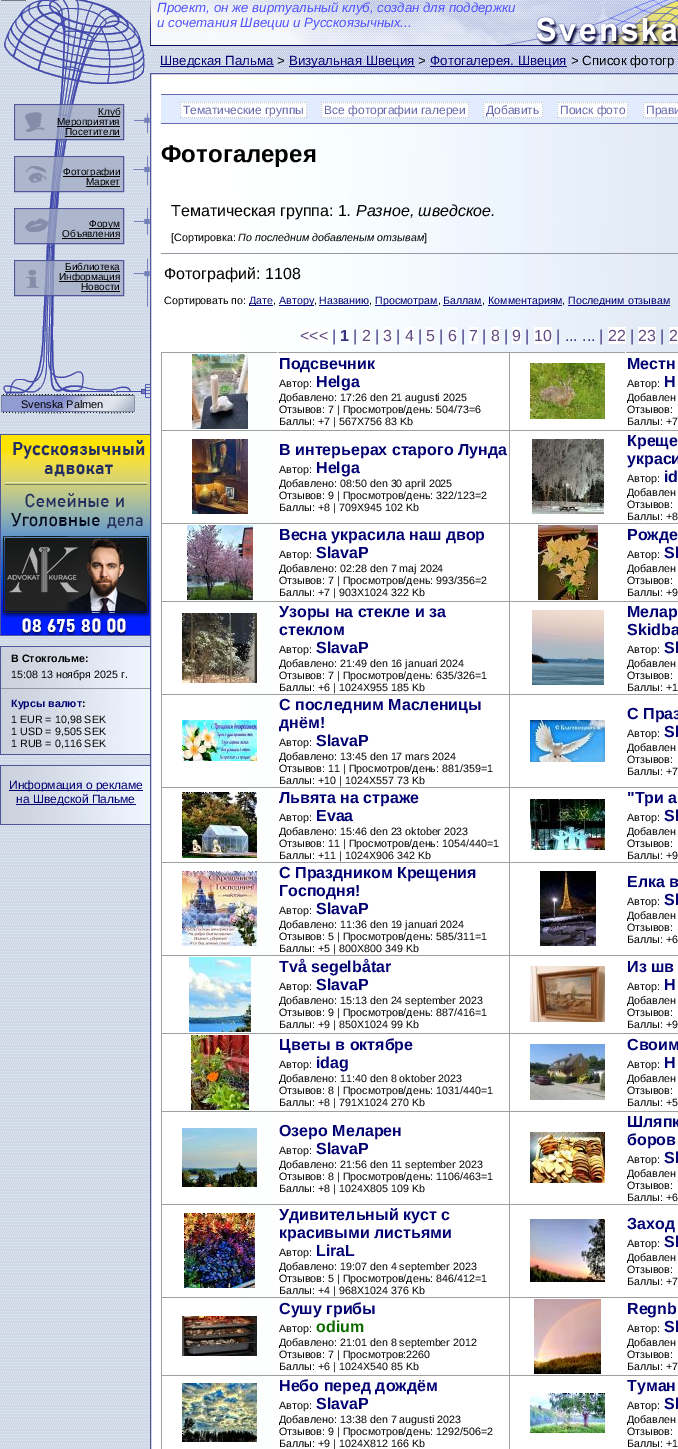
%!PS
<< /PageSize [678 1449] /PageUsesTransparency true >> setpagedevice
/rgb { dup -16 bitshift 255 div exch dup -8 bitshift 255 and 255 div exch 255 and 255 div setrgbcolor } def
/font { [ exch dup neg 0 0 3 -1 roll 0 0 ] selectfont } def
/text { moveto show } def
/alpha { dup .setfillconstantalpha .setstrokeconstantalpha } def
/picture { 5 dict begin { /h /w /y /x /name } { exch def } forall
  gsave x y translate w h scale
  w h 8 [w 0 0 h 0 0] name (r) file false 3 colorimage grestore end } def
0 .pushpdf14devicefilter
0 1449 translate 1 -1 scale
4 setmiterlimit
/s1 { /LiberationSans-Regular 10 font 16#000000 rgb } def
/s2 { /LiberationSans-Regular 11 font 16#000000 rgb } def
/s3 { /LiberationSans-Bold 10.7 font 16#000000 rgb } def
/s4 { /LiberationSans-Regular 10.7 font 16#000000 rgb } def
/s5 { /LiberationSans-Bold 10.7 font 16#000072 rgb } def
/s6 { /LiberationSans-Regular 12 font 16#000072 rgb } def
/s7 { /LiberationSans-Italic 13.3 font 16#4F51FD rgb } def
/s8 { /LiberationSans-Regular 13.3 font 16#000072 rgb } def
/s9 { /LiberationSans-Regular 13.3 font 16#000000 rgb } def
/s10 { /LiberationSans-Regular 12 font 16#6868AE rgb } def
/s11 { /LiberationSans-Bold 24 font 16#000000 rgb } def
/s12 { /LiberationSans-Regular 16 font 16#000000 rgb } def
/s13 { /LiberationSans-Italic 16 font 16#000000 rgb } def
/s14 { /LiberationSans-Italic 10.7 font 16#000000 rgb } def
/s15 { /LiberationSans-Regular 10.7 font 16#000072 rgb } def
/s16 { /LiberationSans-Regular 16 font 16#604A81 rgb } def
/s17 { /LiberationSans-Regular 16 font 16#3C2F7E rgb } def
/s18 { /LiberationSans-Bold 16 font 16#3C2F7E rgb } def
/s19 { /LiberationSans-Bold 16 font 16#000072 rgb } def
/s20 { /LiberationSans-Bold 16 font 16#0E6B00 rgb } def
16#FFFFFF rgb
0 0 678 1449 rectfill
(pic1.raw) 0 0 678 1449 picture
(pic2.raw) 1 0 149 414 picture
0.45 alpha
16#000000 rgb
1 0 25 1 rectfill
1 alpha
16#50569A rgb
14.5 104.5 109 35 rectstroke
0.75 alpha
16#9FA9C2 rgb
15 105 108 34 rectfill
1 alpha
(pic3.raw) 25 112 20 20 picture
16#000000 rgb
98 116 22 1 rectfill
s1
(Клуб) 98 115 text
57 126 63 1 rectfill
(Мероприятия) 57 125 text
(Посетители) 65 135 text
65 136 55 1 rectfill
16#50569A rgb
14.5 156.5 109 35 rectstroke
0.75 alpha
16#9FA9C2 rgb
15 157 108 34 rectfill
1 alpha
(pic4.raw) 26 166 21 17 picture
16#000000 rgb
63 176 57 1 rectfill
(Фотографии) 63 175 text
86 186 34 1 rectfill
(Маркет) 86 185 text
16#50569A rgb
14.5 208.5 109 35 rectstroke
0.75 alpha
16#9FA9C2 rgb
15 209 108 34 rectfill
1 alpha
(pic5.raw) 25 218 24 14 picture
16#000000 rgb
89 228 31 1 rectfill
(Форум) 89 227 text
(Объявления) 62 237 text
62 238 58 1 rectfill
16#50569A rgb
14.5 260.5 109 35 rectstroke
0.75 alpha
16#9FA9C2 rgb
15 261 108 34 rectfill
1 alpha
(pic6.raw) 26 270 13 18 picture
s1
(Библиотека) 65 270 text
65 271 55 1 rectfill
59 281 61 1 rectfill
(Информация) 59 280 text
(Новости) 81 290 text
81 291 39 1 rectfill
s2
(Svenska Palmen) 21 408 text
16#50569A rgb
0 434 151 1 rectfill
0 635 151 1 rectfill
0 434 1 202 rectfill
(pic7.raw) 1 435 149 200 picture
(pic8.raw) 1 647 149 107 picture
0 646 151 1 rectfill
0 754 151 1 rectfill
0 646 1 109 rectfill
s3
(В Стокгольме:) 11 662 text
s4
(15:08 13 ноября 2025 г.) 11 678 text
16#9696A5 rgb
1 688 150 1 rectfill
s5
(Курсы валют) 11 707 text
s3
(:) 82 707 text
s4
(1 EUR = 10,98 SEK) 11 723 text
(1 USD = 9,505 SEK) 11 735 text
(1 RUB = 0,116 SEK) 11 747 text
(pic9.raw) 1 766 149 58 picture
16#50569A rgb
0 765 151 1 rectfill
0 824 151 1 rectfill
0 765 1 60 rectfill
16#000072 rgb
9 790 134 1 rectfill
s6
(Информация о рекламе) 9 789 text
16 804 120 1 rectfill
(на Шведской Пальме) 16 803 text
(pic10.raw) 150 0 525 46 picture
(pic11.raw) 441 0 237 46 picture
s7
(Проект, он же виртуальный клуб, создан для поддержки) 157 12 text
(и сочетания Швеции и Русскоязычных...) 157 27 text
16#000072 rgb
160 66 114 1 rectfill
s8
(Шведская Пальма) 160 65 text
s9
(>) 277 65 text
16#000072 rgb
289 66 126 1 rectfill
(Визуальная Швеция) 289 65 text
s9
(>) 418 65 text
16#000072 rgb
430 66 137 1 rectfill
(Фотогалерея. Швеция) 430 65 text
s9
(> Список фотогр) 571 65 text
(pic12.raw) 151 74 527 1375 picture
16#50569A rgb
150.5 73.5 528 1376 rectstroke
16#E2ECFF rgb
161 95 517 28 rectfill
16#6868AE rgb
161 94 517 1 rectfill
161 123 517 1 rectfill
16#FFFFFF rgb
180 102 127 16 rectfill
16#CBCBD9 rgb
[1 1] 0 setdash
180 102.5 moveto 307 102.5 lineto stroke
306.5 102 moveto 306.5 118 lineto stroke
180 117.5 moveto 307 117.5 lineto stroke
180.5 102 moveto 180.5 118 lineto stroke
s10
(Тематические группы) 183 114 text
16#FFFFFF rgb
321 102 148 16 rectfill
16#CBCBD9 rgb
321 102.5 moveto 469 102.5 lineto stroke
468.5 102 moveto 468.5 118 lineto stroke
321 117.5 moveto 469 117.5 lineto stroke
321.5 102 moveto 321.5 118 lineto stroke
s10
(Все фоторгафии галереи) 324 114 text
16#FFFFFF rgb
483 102 60 16 rectfill
16#CBCBD9 rgb
483 102.5 moveto 543 102.5 lineto 542.5 102 moveto 542.5 118 lineto 483 117.5 moveto 543 117.5 lineto 483.5 102 moveto 483.5 118 lineto stroke
s10
(Добавить) 486 114 text
16#FFFFFF rgb
557 102 71 16 rectfill
16#CBCBD9 rgb
557 102.5 moveto 628 102.5 lineto stroke
627.5 102 moveto 627.5 118 lineto stroke
557 117.5 moveto 628 117.5 lineto stroke
557.5 102 moveto 557.5 118 lineto stroke
s10
(Поиск фото) 560 114 text
16#FFFFFF rgb
643 102 35 16 rectfill
16#CBCBD9 rgb
643 102.5 moveto 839 102.5 lineto 643 117.5 moveto 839 117.5 lineto 643.5 102 moveto 643.5 118 lineto stroke
s10
(Прави) 646 114 text
s11
(Фотогалерея) 161 162 text
s12
(Тематическая группа: 1) 171 216 text
s13
(. Разное, шведское.) 347 216 text
s4
([Сортировка:) 171 241 text
s14
(По последним добавленым отзывам) 238 241 text
s4
(]) 424 241 text
16#9696A5 rgb
161 253 517 1 rectfill
s12
(Фотографий: 1108) 164 279 text
s4
(Сортировать по:) 164 304 text
16#000072 rgb
249 305 24 1 rectfill
(Дате) 249 304 text
s4
(,) 273 304 text
16#000072 rgb
279 305 35 1 rectfill
(Автору) 279 304 text
s4
(,) 314 304 text
s15
(Названию) 319 304 text
319 305 50 1 rectfill
s4
(,) 369 304 text
16#000072 rgb
375 305 63 1 rectfill
(Просмотрам) 375 304 text
s4
(,) 438 304 text
s15
(Баллам) 443 304 text
443 305 39 1 rectfill
s4
(,) 482 304 text
16#000072 rgb
488 305 74 1 rectfill
(Комментариям) 488 304 text
s4
(,) 562 304 text
16#000072 rgb
568 305 102 1 rectfill
(Последним отзывам) 568 304 text
16#FFFFFF rgb
300 327 28 17 rectfill
s16
(<<<) 300 341 text
s17
(|) 332 341 text
s18
(1) 340 341 text
s17
(|) 353 341 text
16#FFFFFF rgb
362 327 9 17 rectfill
s16
(2) 362 341 text
s17
(|) 375 341 text
16#FFFFFF rgb
383 327 9 17 rectfill
s16
(3) 383 341 text
s17
(|) 396 341 text
16#FFFFFF rgb
405 327 9 17 rectfill
s16
(4) 405 341 text
s17
(|) 418 341 text
16#FFFFFF rgb
426 327 9 17 rectfill
s16
(5) 426 341 text
s17
(|) 439 341 text
16#FFFFFF rgb
448 327 9 17 rectfill
s16
(6) 448 341 text
s17
(|) 461 341 text
16#FFFFFF rgb
469 327 9 17 rectfill
s16
(7) 469 341 text
s17
(|) 482 341 text
16#FFFFFF rgb
491 327 9 17 rectfill
s16
(8) 491 341 text
s17
(|) 504 341 text
16#FFFFFF rgb
512 327 9 17 rectfill
s16
(9) 512 341 text
s17
(|) 525 341 text
16#FFFFFF rgb
534 327 18 17 rectfill
s16
(10) 534 341 text
s17
(| ... ...) 556 341 text
(|) 599 341 text
16#FFFFFF rgb
608 327 18 17 rectfill
s16
(22) 608 341 text
s17
(|) 630 341 text
16#FFFFFF rgb
638 327 18 17 rectfill
s16
(23) 638 341 text
s17
(|) 660 341 text
16#FFFFFF rgb
669 327 9 17 rectfill
s16
(2) 669 341 text
16#FFFFFF rgb
275 353 403 1096 rectfill
16#9F9F9F rgb
509 352 169 1 rectfill
625 430 53 1 rectfill
16#FFFFFF rgb
625 352 1 79 rectfill
16#9F9F9F rgb
625 523 53 1 rectfill
16#FFFFFF rgb
625 523 1 1 rectfill
16#9F9F9F rgb
625 601 53 1 rectfill
16#FFFFFF rgb
625 601 1 1 rectfill
16#9F9F9F rgb
625 694 53 1 rectfill
16#FFFFFF rgb
625 694 1 1 rectfill
16#9F9F9F rgb
625 787 53 1 rectfill
16#FFFFFF rgb
625 787 1 1 rectfill
16#9F9F9F rgb
625 862 53 1 rectfill
16#FFFFFF rgb
625 862 1 1 rectfill
16#9F9F9F rgb
625 955 53 1 rectfill
16#FFFFFF rgb
625 955 1 1 rectfill
16#9F9F9F rgb
625 1033 53 1 rectfill
16#FFFFFF rgb
625 1033 1 1 rectfill
16#9F9F9F rgb
625 1111 53 1 rectfill
16#FFFFFF rgb
625 1111 1 1 rectfill
16#9F9F9F rgb
625 1204 53 1 rectfill
16#FFFFFF rgb
625 1204 1 1 rectfill
16#9F9F9F rgb
625 1297 53 1 rectfill
16#FFFFFF rgb
625 1297 1 1 rectfill
16#9F9F9F rgb
625 1375 53 1 rectfill
16#FFFFFF rgb
625 1375 1 1 rectfill
16#9F9F9F rgb
509 1375 1 74 rectfill
509 1375 117 1 rectfill
509 1297 1 79 rectfill
509 1297 117 1 rectfill
509 1204 1 94 rectfill
509 1204 117 1 rectfill
509 1111 1 94 rectfill
509 1111 117 1 rectfill
509 1033 1 79 rectfill
509 1033 117 1 rectfill
509 955 1 79 rectfill
509 955 117 1 rectfill
509 862 1 94 rectfill
509 862 117 1 rectfill
509 787 1 76 rectfill
509 787 117 1 rectfill
509 694 1 94 rectfill
509 694 117 1 rectfill
509 601 1 94 rectfill
509 601 117 1 rectfill
509 523 1 79 rectfill
509 523 117 1 rectfill
509 430 1 94 rectfill
509 430 117 1 rectfill
509 352 1 79 rectfill
161 352 349 1 rectfill
277 430 233 1 rectfill
16#FFFFFF rgb
277 352 1 79 rectfill
16#9F9F9F rgb
277 523 233 1 rectfill
16#FFFFFF rgb
277 523 1 1 rectfill
16#9F9F9F rgb
277 601 233 1 rectfill
16#FFFFFF rgb
277 601 1 1 rectfill
16#9F9F9F rgb
277 694 233 1 rectfill
16#FFFFFF rgb
277 694 1 1 rectfill
16#9F9F9F rgb
277 787 233 1 rectfill
16#FFFFFF rgb
277 787 1 1 rectfill
16#9F9F9F rgb
277 862 233 1 rectfill
16#FFFFFF rgb
277 862 1 1 rectfill
16#9F9F9F rgb
277 955 233 1 rectfill
16#FFFFFF rgb
277 955 1 1 rectfill
16#9F9F9F rgb
277 1033 233 1 rectfill
16#FFFFFF rgb
277 1033 1 1 rectfill
16#9F9F9F rgb
277 1111 233 1 rectfill
16#FFFFFF rgb
277 1111 1 1 rectfill
16#9F9F9F rgb
277 1204 233 1 rectfill
16#FFFFFF rgb
277 1204 1 1 rectfill
16#9F9F9F rgb
277 1297 233 1 rectfill
16#FFFFFF rgb
277 1297 1 1 rectfill
16#9F9F9F rgb
277 1375 233 1 rectfill
16#FFFFFF rgb
277 1375 1 1 rectfill
16#9F9F9F rgb
161 1375 1 74 rectfill
161 1375 117 1 rectfill
161 1297 1 79 rectfill
161 1297 117 1 rectfill
161 1204 1 94 rectfill
161 1204 117 1 rectfill
161 1111 1 94 rectfill
161 1111 117 1 rectfill
161 1033 1 79 rectfill
161 1033 117 1 rectfill
161 955 1 79 rectfill
161 955 117 1 rectfill
161 862 1 94 rectfill
161 862 117 1 rectfill
161 787 1 76 rectfill
161 787 117 1 rectfill
161 694 1 94 rectfill
161 694 117 1 rectfill
161 601 1 94 rectfill
161 601 117 1 rectfill
161 523 1 79 rectfill
161 523 117 1 rectfill
161 430 1 94 rectfill
161 430 117 1 rectfill
161 352 1 79 rectfill
(pic13.raw) 192 354 56 75 picture
s19
(Подсвечник) 279 369 text
s4
(Автор:) 279 387 text
s19
(Helga) 316 387 text
s4
(Добавлено: 17:26 den 21 augusti 2025) 279 401 text
(Отзывов: 7 | Просмотров/день: 504/73=6) 279 413 text
(Баллы: +7 | 567X756 83 Kb) 279 425 text
(pic14.raw) 530 363 75 56 picture
s19
(Местн) 627 369 text
s4
(Автор:) 627 387 text
s19
(H) 664 387 text
s4
(Добавлен) 627 401 text
(Отзывов:) 627 413 text
(Баллы: +7) 627 425 text
(pic15.raw) 192 439 56 75 picture
s19
(В интерьерах старого Лунда) 279 455 text
s4
(Автор:) 279 473 text
s19
(Helga) 316 473 text
s4
(Добавлено: 08:50 den 30 april 2025) 279 487 text
(Отзывов: 9 | Просмотров/день: 322/123=2) 279 499 text
(Баллы: +8 | 709X945 102 Kb) 279 511 text
(pic16.raw) 532 439 72 75 picture
s19
(Креще) 627 446 text
(украси) 627 464 text
s4
(Автор:) 627 482 text
s19
(id) 664 482 text
s4
(Добавлен) 627 496 text
(Отзывов:) 627 508 text
(Баллы: +8) 627 520 text
(pic17.raw) 187 525 66 75 picture
s19
(Весна украсила наш двор) 279 540 text
s4
(Автор:) 279 558 text
s19
(SlavaP) 316 558 text
s4
(Добавлено: 02:28 den 7 maj 2024) 279 572 text
(Отзывов: 7 | Просмотров/день: 993/356=2) 279 584 text
(Баллы: +7 | 903X1024 322 Kb) 279 596 text
(pic18.raw) 538 525 60 75 picture
s19
(Рожде) 627 540 text
s4
(Автор:) 627 558 text
s19
(Sl) 664 558 text
s4
(Добавлен) 627 572 text
(Отзывов:) 627 584 text
(Баллы: +9) 627 596 text
(pic19.raw) 182 613 75 70 picture
s19
(Узоры на стекле и за) 279 617 text
(стеклом) 279 635 text
s4
(Автор:) 279 653 text
s19
(SlavaP) 316 653 text
s4
(Добавлено: 21:49 den 16 januari 2024) 279 667 text
(Отзывов: 7 | Просмотров/день: 635/326=1) 279 679 text
(Баллы: +6 | 1024X955 185 Kb) 279 691 text
(pic20.raw) 532 610 72 75 picture
s19
(Мелар) 627 617 text
(Skidba) 627 635 text
s4
(Автор:) 627 653 text
s19
(Sl) 664 653 text
s4
(Добавлен) 627 667 text
(Отзывов:) 627 679 text
(Баллы: +1) 627 691 text
(pic21.raw) 182 720 75 41 picture
s19
(С последним Масленицы) 279 710 text
(днём!) 279 728 text
s4
(Автор:) 279 746 text
s19
(SlavaP) 316 746 text
s4
(Добавлено: 13:45 den 17 mars 2024) 279 760 text
(Отзывов: 11 | Просмотров/день: 881/359=1) 279 772 text
(Баллы: +10 | 1024X557 73 Kb) 279 784 text
(pic22.raw) 530 720 75 42 picture
s19
(С Праз) 627 719 text
s4
(Автор:) 627 737 text
s19
(Sl) 664 737 text
s4
(Добавлен) 627 751 text
(Отзывов:) 627 763 text
(Баллы: +7) 627 775 text
(pic23.raw) 182 792 75 66 picture
s19
(Львята на страже) 279 803 text
s4
(Автор:) 279 821 text
s19
(Evaa) 316 821 text
s4
(Добавлено: 15:46 den 23 oktober 2023) 279 835 text
(Отзывов: 11 | Просмотров/день: 1054/440=1) 279 847 text
(Баллы: +11 | 1024X906 342 Kb) 279 859 text
(pic24.raw) 530 799 75 51 picture
s19
("Три а) 627 803 text
s4
(Автор:) 627 821 text
s19
(Sl) 664 821 text
s4
(Добавлен) 627 835 text
(Отзывов:) 627 847 text
(Баллы: +9) 627 859 text
(pic25.raw) 182 871 75 75 picture
s19
(С Праздником Крещения) 279 878 text
(Господня!) 279 896 text
s4
(Автор:) 279 914 text
s19
(SlavaP) 316 914 text
s4
(Добавлено: 11:36 den 19 januari 2024) 279 928 text
(Отзывов: 5 | Просмотров/день: 585/311=1) 279 940 text
(Баллы: +5 | 800X800 349 Kb) 279 952 text
(pic26.raw) 540 871 56 75 picture
s19
(Елка в) 627 887 text
s4
(Автор:) 627 905 text
s19
(Sl) 664 905 text
s4
(Добавлен) 627 919 text
(Отзывов:) 627 931 text
(Баллы: +6) 627 943 text
(pic27.raw) 189 957 62 75 picture
s19
(Två segelbåtar) 279 972 text
s4
(Автор:) 279 990 text
s19
(SlavaP) 316 990 text
s4
(Добавлено: 15:13 den 24 september 2023) 279 1004 text
(Отзывов: 9 | Просмотров/день: 887/416=1) 279 1016 text
(Баллы: +9 | 850X1024 99 Kb) 279 1028 text
(pic28.raw) 530 966 75 56 picture
s19
(Из шв) 627 972 text
s4
(Автор:) 627 990 text
s19
(H) 664 990 text
s4
(Добавлен) 627 1004 text
(Отзывов:) 627 1016 text
(Баллы: +9) 627 1028 text
(pic29.raw) 191 1035 58 75 picture
s19
(Цветы в октябре) 279 1050 text
s4
(Автор:) 279 1068 text
s19
(idag) 316 1068 text
s4
(Добавлено: 11:40 den 8 oktober 2023) 279 1082 text
(Отзывов: 8 | Просмотров/день: 1031/440=1) 279 1094 text
(Баллы: +8 | 791X1024 270 Kb) 279 1106 text
(pic30.raw) 530 1044 75 56 picture
s19
(Своим) 627 1050 text
s4
(Автор:) 627 1068 text
s19
(H) 664 1068 text
s4
(Добавлен) 627 1082 text
(Отзывов:) 627 1094 text
(Баллы: +5) 627 1106 text
(pic31.raw) 182 1128 75 59 picture
s19
(Озеро Меларен) 279 1136 text
s4
(Автор:) 279 1154 text
s19
(SlavaP) 316 1154 text
s4
(Добавлено: 21:56 den 11 september 2023) 279 1168 text
(Отзывов: 8 | Просмотров/день: 1106/463=1) 279 1180 text
(Баллы: +8 | 1024X805 109 Kb) 279 1192 text
(pic32.raw) 530 1132 75 51 picture
s19
(Шляпк) 627 1127 text
(боров) 627 1145 text
s4
(Автор:) 627 1163 text
s19
(Sl) 664 1163 text
s4
(Добавлен) 627 1177 text
(Отзывов:) 627 1189 text
(Баллы: +6) 627 1201 text
(pic33.raw) 184 1213 71 75 picture
s19
(Удивительный куст с) 279 1220 text
(красивыми листьями) 279 1238 text
s4
(Автор:) 279 1256 text
s19
(LiraL) 316 1256 text
s4
(Добавлено: 19:07 den 4 september 2023) 279 1270 text
(Отзывов: 5 | Просмотров/день: 846/412=1) 279 1282 text
(Баллы: +4 | 968X1024 376 Kb) 279 1294 text
(pic34.raw) 530 1219 75 63 picture
s19
(Заход) 627 1229 text
s4
(Автор:) 627 1247 text
s19
(Sl) 664 1247 text
s4
(Добавлен) 627 1261 text
(Отзывов:) 627 1273 text
(Баллы: +7) 627 1285 text
(pic35.raw) 182 1316 75 40 picture
s19
(Сушу грибы) 279 1314 text
s4
(Автор:) 279 1332 text
s20
(odium) 316 1332 text
s4
(Добавлено: 21:01 den 8 september 2012) 279 1346 text
(Отзывов: 7 | Просмотров:2260) 279 1358 text
(Баллы: +6 | 1024X540 85 Kb) 279 1370 text
(pic36.raw) 534 1299 67 75 picture
s19
(Regnb) 627 1314 text
s4
(Автор:) 627 1332 text
s19
(Sl) 664 1332 text
s4
(Добавлен) 627 1346 text
(Отзывов:) 627 1358 text
(Баллы: +7) 627 1370 text
(pic37.raw) 182 1383 75 59 picture
s19
(Небо перед дождём) 279 1391 text
s4
(Автор:) 279 1409 text
s19
(SlavaP) 316 1409 text
s4
(Добавлено: 13:38 den 7 augusti 2023) 279 1423 text
(Отзывов: 9 | Просмотров/день: 1292/506=2) 279 1435 text
(Баллы: +9 | 1024X812 166 Kb) 279 1447 text
(pic38.raw) 530 1393 75 40 picture
s19
(Туман) 627 1391 text
s4
(Автор:) 627 1409 text
s19
(Sl) 664 1409 text
s4
(Добавлен) 627 1423 text
(Отзывов:) 627 1435 text
(Баллы: +1) 627 1447 text
.poppdf14devicefilter showpage
